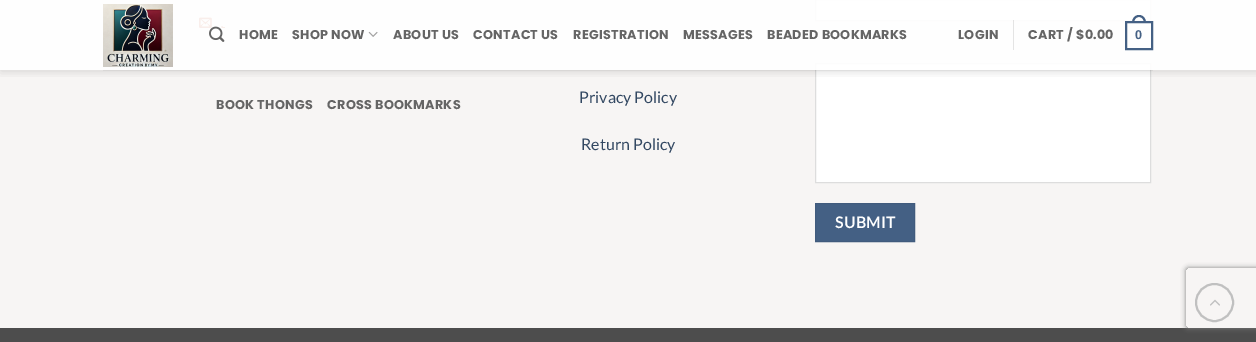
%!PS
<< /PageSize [1256 342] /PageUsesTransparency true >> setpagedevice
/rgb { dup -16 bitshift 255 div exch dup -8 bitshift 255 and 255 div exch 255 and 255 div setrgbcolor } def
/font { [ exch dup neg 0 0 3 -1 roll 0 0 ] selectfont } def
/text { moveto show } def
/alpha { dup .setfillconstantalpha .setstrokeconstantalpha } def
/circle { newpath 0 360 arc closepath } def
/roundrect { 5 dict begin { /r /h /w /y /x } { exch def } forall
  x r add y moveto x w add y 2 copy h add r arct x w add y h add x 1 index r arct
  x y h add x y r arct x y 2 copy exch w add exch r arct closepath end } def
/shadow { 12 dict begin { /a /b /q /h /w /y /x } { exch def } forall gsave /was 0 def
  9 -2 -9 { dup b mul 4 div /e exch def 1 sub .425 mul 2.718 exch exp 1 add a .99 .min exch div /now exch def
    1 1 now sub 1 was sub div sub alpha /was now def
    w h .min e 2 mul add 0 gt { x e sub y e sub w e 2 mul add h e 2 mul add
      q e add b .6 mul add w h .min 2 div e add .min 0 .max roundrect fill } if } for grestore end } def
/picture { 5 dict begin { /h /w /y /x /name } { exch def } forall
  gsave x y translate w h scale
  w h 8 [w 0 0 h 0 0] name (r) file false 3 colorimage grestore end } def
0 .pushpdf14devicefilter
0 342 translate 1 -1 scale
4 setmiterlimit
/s1 { /Lato-Regular 16 font 16#334862 rgb } def
16#4D4D4D rgb
0 0 1256 342 rectfill
16#F7F5F4 rgb
0 0 1256 328 rectfill
(pic4.raw) 199 17 13 11 picture
16#FFFFFF rgb
815.5 -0.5 moveto 1150.5 -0.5 lineto 1150.5 20.5 lineto 815.5 20.5 lineto closepath gsave fill grestore
16#DDDDDD rgb
stroke
16#FFFFFF rgb
815.5 63.5 moveto 1150.5 63.5 lineto 1150.5 182.5 lineto 815.5 182.5 lineto closepath gsave fill grestore
16#DDDDDD rgb
stroke
gsave
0 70 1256 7 rectclip
16#000000 rgb
1 1 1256 70 0 5 0.15 shadow
grestore
0.9 alpha
16#FFFFFF rgb
0 0 1256 70 rectfill
1 alpha
(pic1.raw) 103 4 70 63 picture
(pic2.raw) 209 26 16 16 picture
/Poppins-Bold 12.75 font
16#656565 rgb
239 39 moveto 0.25 0 (HOME) ashow
292 39 moveto 0.25 0 (SHOP NOW) ashow
(pic3.raw) 368 31 10 6 picture
393 39 moveto 0.25 0 (ABOUT US) ashow
473 39 moveto 0.25 0 (CONTACT US) ashow
573 39 moveto 0.25 0 (REGISTRATION) ashow
683 39 moveto 0.25 0 (MESSAGES) ashow
767 39 moveto 0.25 0 (BEADED BOOKMARKS) ashow
216 109 moveto 0.25 0 (BOOK THONGS) ashow
327 109 moveto 0.25 0 (CROSS BOOKMARKS) ashow
958 39 moveto 0.25 0 (LOGIN) ashow
0.1 alpha
16#000000 rgb
1013 20 1 30 rectfill
1 alpha
16#656565 rgb
1028 39 moveto 0.25 0 (CART / $0.00) ashow
16#446084 rgb
2 setlinewidth
1126 22 26 27 rectstroke
1139 15 moveto 1143.5 15 1146 19 1146 23 curveto 1132 23 lineto 1132 19 1134.5 15 1139 15 curveto closepath 1139 17 moveto 1142.5 17 1144 20 1144 23 curveto 1134 23 lineto 1134 20 1135.5 17 1139 17 curveto closepath eofill
/LiberationSans-Bold 12.75 font
1135 39 moveto 0.25 0 (0) ashow
0.1 alpha
16#777777 rgb
103 70 1050 1 rectfill
1 alpha
s1
(Privacy Policy) 579 103 text
(Return Policy) 581 150 text
16#446084 rgb
815.5 203.5 moveto 914.5 203.5 lineto 914.5 241.5 lineto 815.5 241.5 lineto closepath gsave fill grestore
16#415B7D rgb
1 setlinewidth
stroke
/Lato-Bold 15.5 font
16#FFFFFF rgb
835 228 moveto 0.5 0 (SUBMIT) ashow
gsave
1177 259 moveto 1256 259 lineto 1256 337 lineto 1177 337 lineto closepath 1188 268 moveto 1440 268 lineto 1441 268 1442 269 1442 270 curveto 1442 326 lineto 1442 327 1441 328 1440 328 curveto 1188 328 lineto 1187 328 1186 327 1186 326 curveto 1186 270 lineto 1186 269 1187 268 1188 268 curveto closepath eoclip newpath
16#808080 rgb
1186 268 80 60 2 2.5 1 shadow
grestore
16#C0C0C0 rgb
2 setlinewidth
1214.5 302.5 18.5 circle stroke
(pic5.raw) 1210 299 10 7 picture
.poppdf14devicefilter showpage
